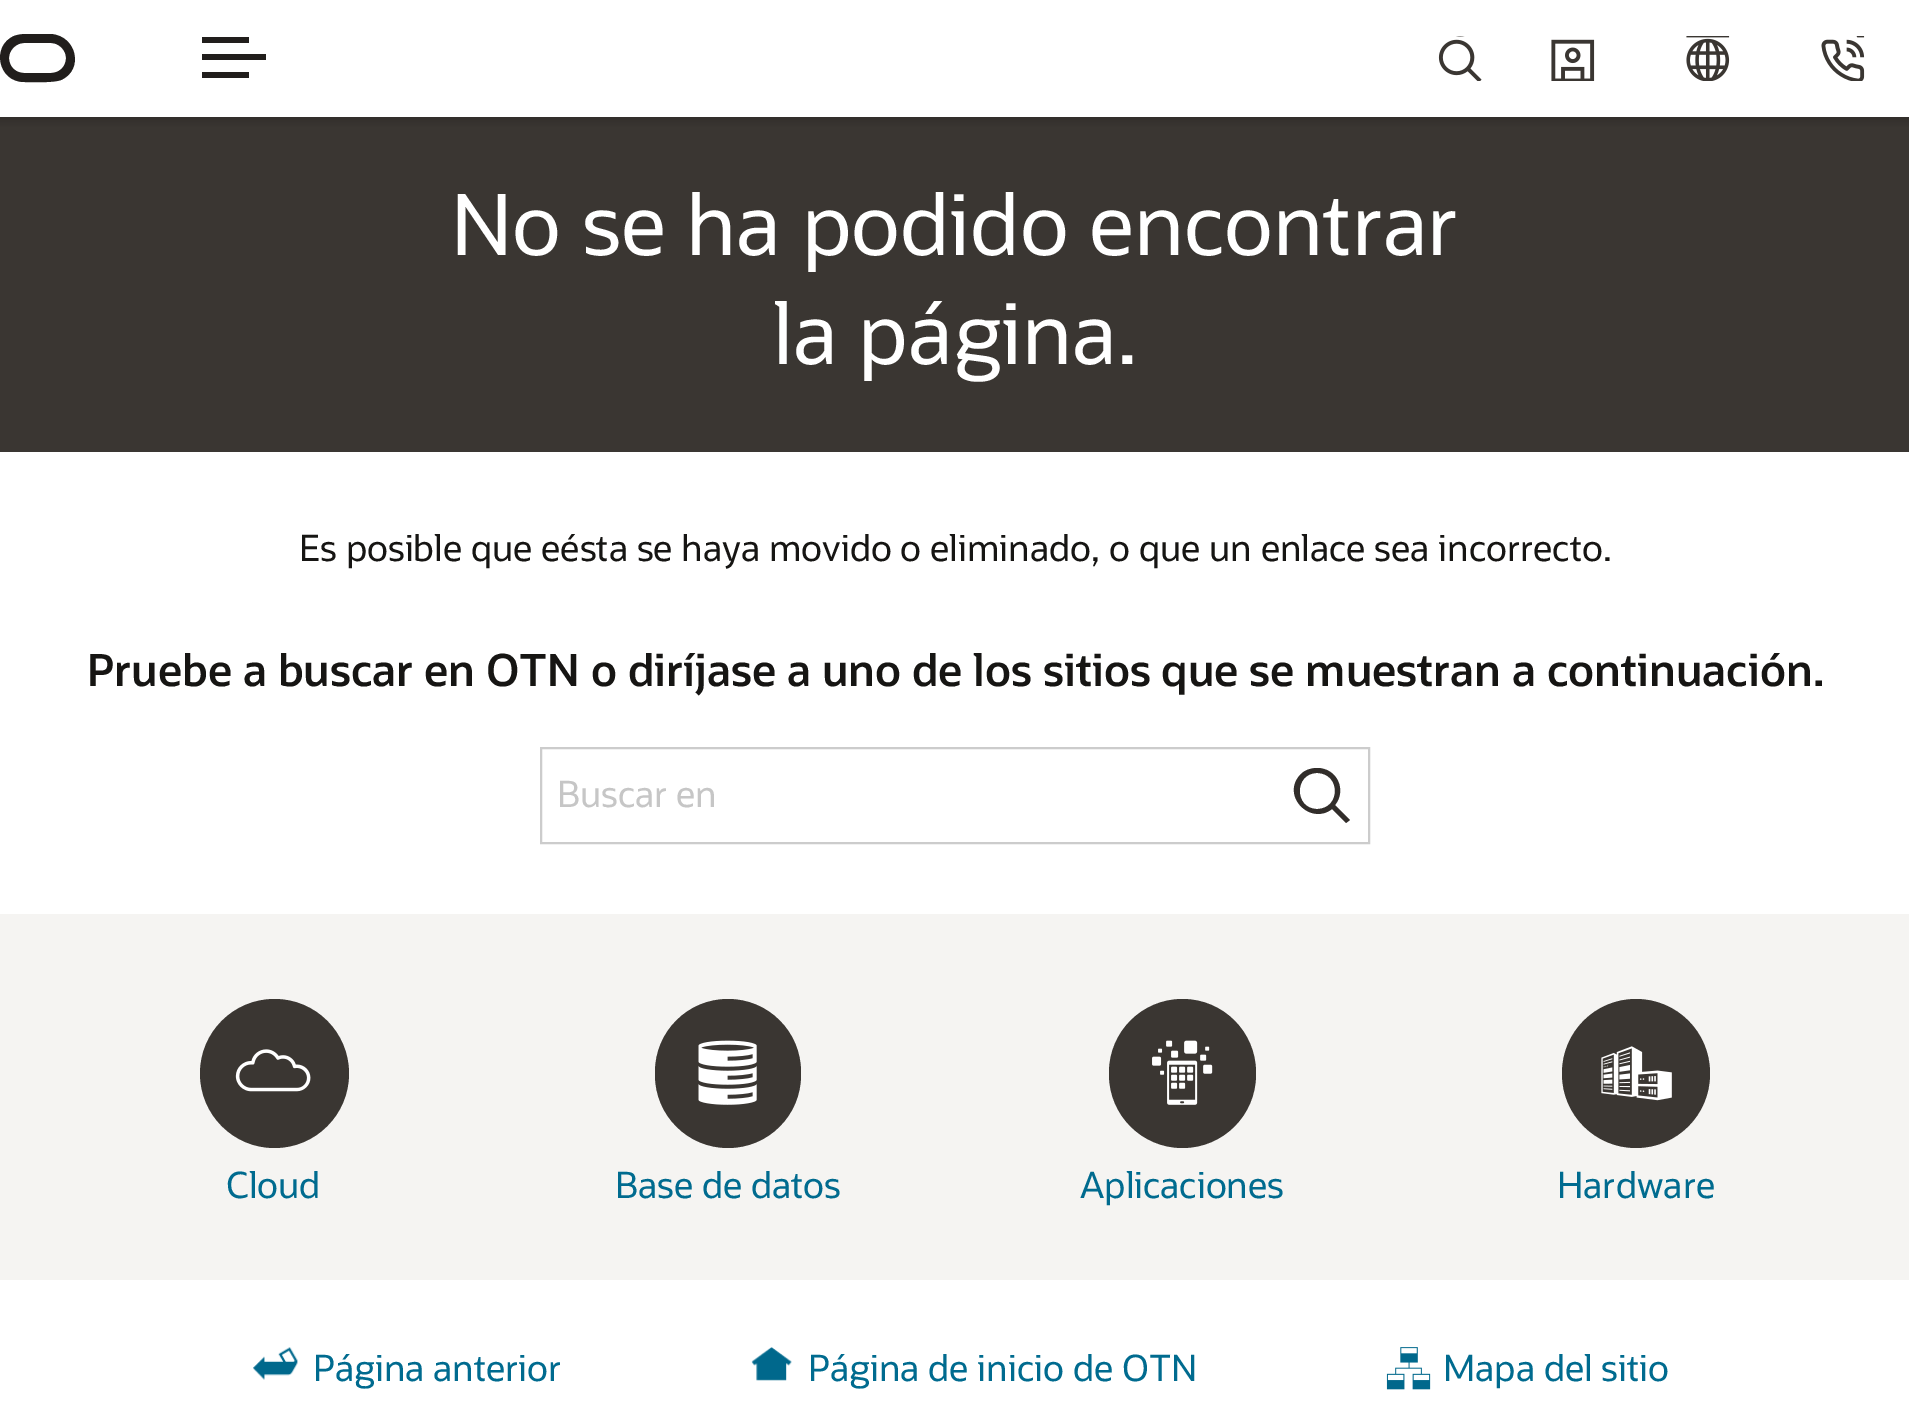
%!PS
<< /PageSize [1909 1405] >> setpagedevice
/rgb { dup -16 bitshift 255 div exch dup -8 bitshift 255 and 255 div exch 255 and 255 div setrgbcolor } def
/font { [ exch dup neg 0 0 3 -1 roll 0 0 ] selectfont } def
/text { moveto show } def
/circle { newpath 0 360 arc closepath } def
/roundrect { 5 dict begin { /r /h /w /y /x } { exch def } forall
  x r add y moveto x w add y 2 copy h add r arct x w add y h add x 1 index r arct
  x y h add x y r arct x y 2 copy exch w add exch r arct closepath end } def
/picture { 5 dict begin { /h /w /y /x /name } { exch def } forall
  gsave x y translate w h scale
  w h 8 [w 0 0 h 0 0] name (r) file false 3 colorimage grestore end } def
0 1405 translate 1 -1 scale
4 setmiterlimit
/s1 { /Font-Regular 84 font 16#FFFFFF rgb } def
/s2 { /Font-Regular 36 font 16#161513 rgb } def
/s3 { /Font-SemiBold 44 font 16#161513 rgb } def
/s4 { /Font-Regular 36 font 16#C6C6C6 rgb } def
/s5 { /Font-Regular 36 font 16#006B8F rgb } def
16#FFFFFF rgb
0 0 1909 1405 rectfill
gsave
0 34 77 49 rectclip
16#211E1C rgb
24 82 moveto -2 82 -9 46 14 36 curveto 22 33 30 34 38 34 curveto 51 34 lineto 77 36 84 70 61 80 curveto 53 83 33 82 24 82 curveto 51 73 moveto 59 73 66 67 66 58 curveto 66 50 59 43 51 43 curveto 24 43 lineto 16 43 9 50 9 58 curveto 9 67 16 73 24 73 curveto 51 73 lineto fill
grestore
16#211E1C rgb
249 72 moveto 249 78 lineto 202 78 lineto 202 72 lineto closepath 266 54 moveto 266 60 lineto 202 60 lineto 202 54 lineto closepath 249 37 moveto 249 43 lineto 202 43 lineto 202 37 lineto closepath eofill
(pic1.raw) 1438 36 44 45 picture
(pic2.raw) 1551 39 44 42 picture
(pic3.raw) 1686 36 44 45 picture
(pic4.raw) 1821 36 44 45 picture
gsave 0 117 moveto 1909 117 lineto 1909 128 lineto 0 128 lineto closepath clip newpath
<< /ShadingType 2 /ColorSpace /DeviceRGB /Coords [955 117 955 128] /Extend [true true] /Function << /FunctionType 2 /Domain [0 1] /C0 [0.2 0.184 0.173] /C1 [0.227 0.212 0.196] /N 1 >> >> shfill grestore
16#3A3632 rgb
0 128 1909 324 rectfill
s1
(No se ha podido encontrar) 451 255 text
(la página.) 773 364 text
s2
(Es posible que eésta se haya movido o eliminado, o que un enlace sea incorrecto.) 299 561 text
s3
(Pruebe a buscar en OTN o diríjase a uno de los sitios que se muestran a continuación.) 87 686 text
16#CCCCCC rgb
2 setlinewidth
541 748 828 95 rectstroke
s4
(Buscar en) 557 807 text
16#312D2A rgb
1317 768 moveto 1337 768 1347 790 1335 805 curveto 1350 820 lineto 1346 823 lineto 1332 809 lineto 1310 826 1280 795 1301 774 curveto 1305 770 1311 768 1317 768 curveto closepath 1317 773 moveto 1294 773 1294 809 1317 809 curveto 1341 809 1341 773 1317 773 curveto closepath eofill
16#F5F4F2 rgb
0 914 1909 366 rectfill
16#3A3632 rgb
274.5 1073.5 74.5 circle fill
(pic5.raw) 235 1049 76 43 picture
s5
(Cloud) 226 1198 text
16#3A3632 rgb
655 999 146 149 73 roundrect fill
(pic6.raw) 698 1040 59 65 picture
s5
(Base de datos) 615 1198 text
16#3A3632 rgb
1109 999 147 149 73.5 roundrect fill
(pic7.raw) 1152 1040 61 65 picture
s5
(Aplicaciones) 1080 1198 text
16#3A3632 rgb
1562 999 148 149 74 roundrect fill
(pic8.raw) 1601 1046 71 55 picture
s5
(Hardware) 1557 1198 text
(pic9.raw) 253 1347 45 33 picture
(Página anterior) 313 1381 text
(pic10.raw) 751 1347 41 34 picture
(Página de inicio de OTN) 808 1381 text
(pic11.raw) 1386 1347 45 43 picture
(Mapa del sitio) 1443 1381 text
showpage
